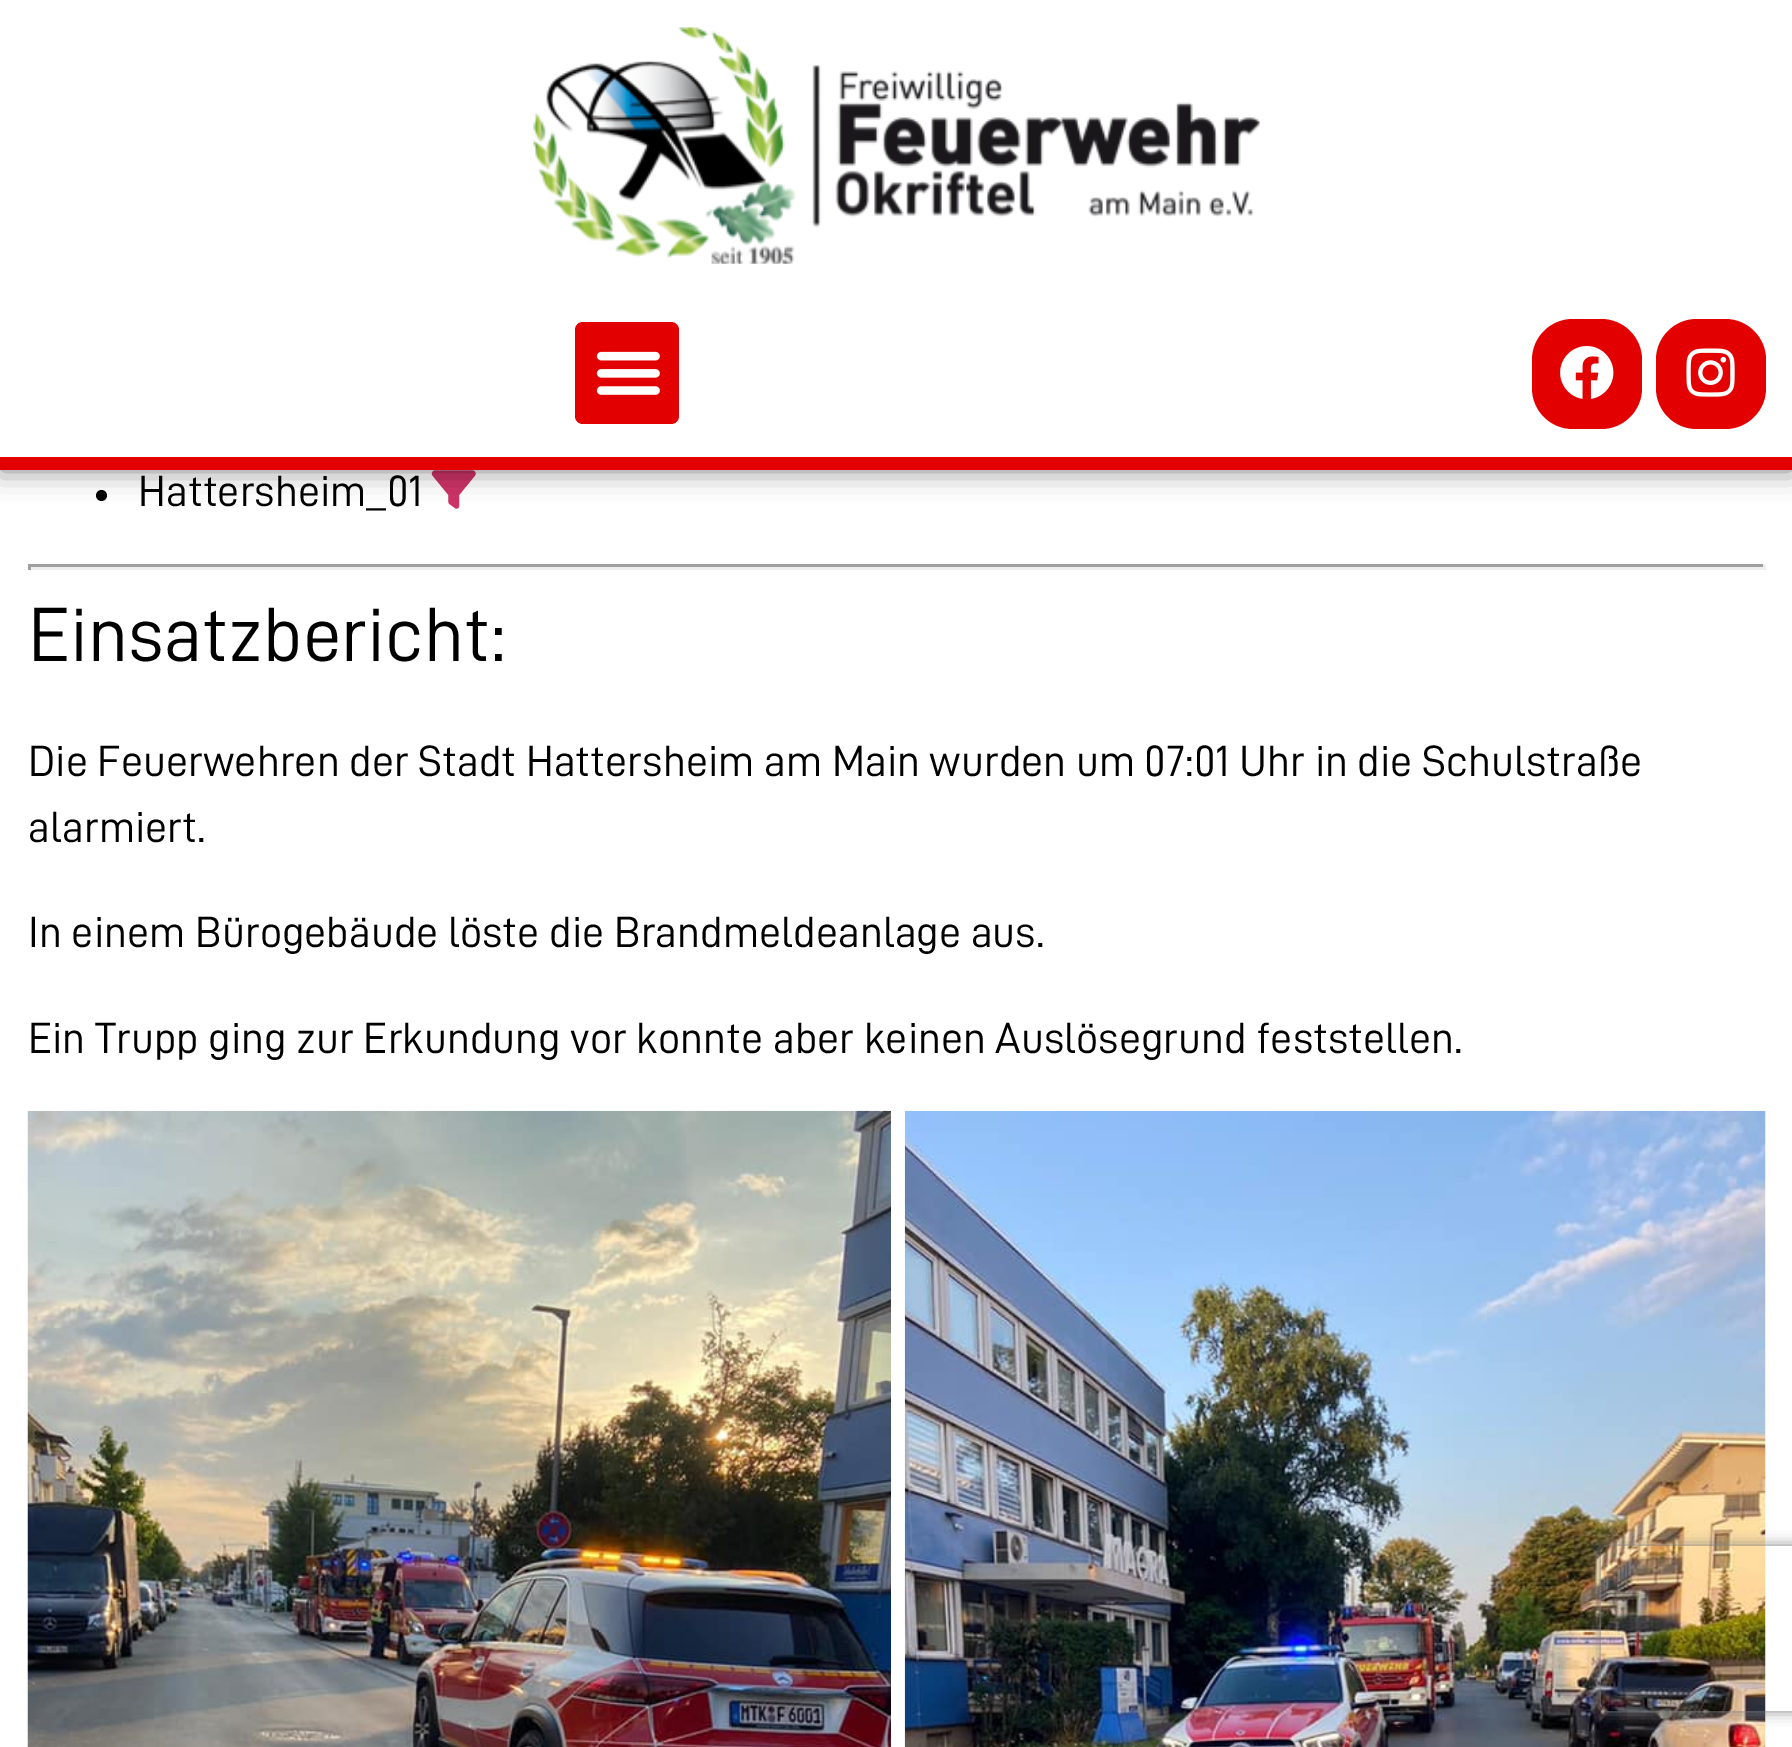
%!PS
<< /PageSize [1792 1747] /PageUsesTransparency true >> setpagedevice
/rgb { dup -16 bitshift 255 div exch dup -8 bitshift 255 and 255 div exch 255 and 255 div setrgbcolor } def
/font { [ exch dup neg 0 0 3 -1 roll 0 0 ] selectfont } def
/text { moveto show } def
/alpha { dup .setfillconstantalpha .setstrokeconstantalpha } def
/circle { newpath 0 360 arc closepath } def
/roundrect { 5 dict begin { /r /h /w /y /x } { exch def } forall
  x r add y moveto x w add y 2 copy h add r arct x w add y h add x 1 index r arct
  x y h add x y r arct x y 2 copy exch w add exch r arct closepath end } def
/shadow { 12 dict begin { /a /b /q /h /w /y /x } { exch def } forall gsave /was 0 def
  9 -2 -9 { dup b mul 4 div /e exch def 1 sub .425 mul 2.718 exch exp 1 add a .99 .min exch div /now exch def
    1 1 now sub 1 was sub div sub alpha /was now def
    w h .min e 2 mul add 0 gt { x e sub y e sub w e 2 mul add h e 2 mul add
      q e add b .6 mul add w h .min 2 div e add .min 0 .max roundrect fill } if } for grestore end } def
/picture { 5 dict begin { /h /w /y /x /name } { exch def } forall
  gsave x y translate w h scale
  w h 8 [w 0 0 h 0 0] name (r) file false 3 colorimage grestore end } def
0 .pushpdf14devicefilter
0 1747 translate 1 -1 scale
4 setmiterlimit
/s1 { /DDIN-Regular 44 font 16#000000 rgb } def
/s2 { /DDIN-Regular 77 font 16#000000 rgb } def
16#FFFFFF rgb
0 0 1792 1747 rectfill
16#000000 rgb
101.5 495.5 5.5 circle fill
(pic5.raw) 431 470 45 39 picture
0 0 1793 470 0 14 0.5 shadow
16#FFFFFF rgb
0 0 1792 457 rectfill
16#E20001 rgb
0 457 1792 13 rectfill
(pic1.raw) 533 27 727 237 picture
575 322 104 102 8 roundrect fill
(pic2.raw) 596 351 64 44 picture
1532 319 110 110 41 roundrect fill
(pic3.raw) 1560 346 54 53 picture
1656 319 110 110 41 roundrect fill
(pic4.raw) 1686 348 49 49 picture
s1
(Hattersheim_01) 138 506 text
16#9F9F9F rgb
28 564 1738 3 rectfill
16#EEEEEE rgb
1763 564 3 6 rectfill
28 567 1738 3 rectfill
16#9F9F9F rgb
28 564 3 6 rectfill
s2
(Einsatzbericht:) 28 661 text
s1
(Die Feuerwehren der Stadt Hattersheim am Main wurden um 07:01 Uhr in die Schulstraße) 28 776 text
(alarmiert.) 28 842 text
(In einem Bürogebäude löste die Brandmeldeanlage aus.) 28 947 text
(Ein Trupp ging zur Erkundung vor konnte aber keinen Auslösegrund feststellen.) 28 1053 text
(pic6.raw) 27 1110 864 637 picture
(pic7.raw) 904 1110 862 637 picture
gsave
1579 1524 moveto 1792 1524 lineto 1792 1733 lineto 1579 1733 lineto closepath 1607 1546 moveto 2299 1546 lineto 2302.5 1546 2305 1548.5 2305 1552 curveto 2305 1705 lineto 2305 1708.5 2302.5 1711 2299 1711 curveto 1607 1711 lineto 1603.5 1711 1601 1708.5 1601 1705 curveto 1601 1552 lineto 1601 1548.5 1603.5 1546 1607 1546 curveto closepath eoclip newpath
16#808080 rgb
1601 1546 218 165 6 7 1 shadow
grestore
.poppdf14devicefilter showpage
